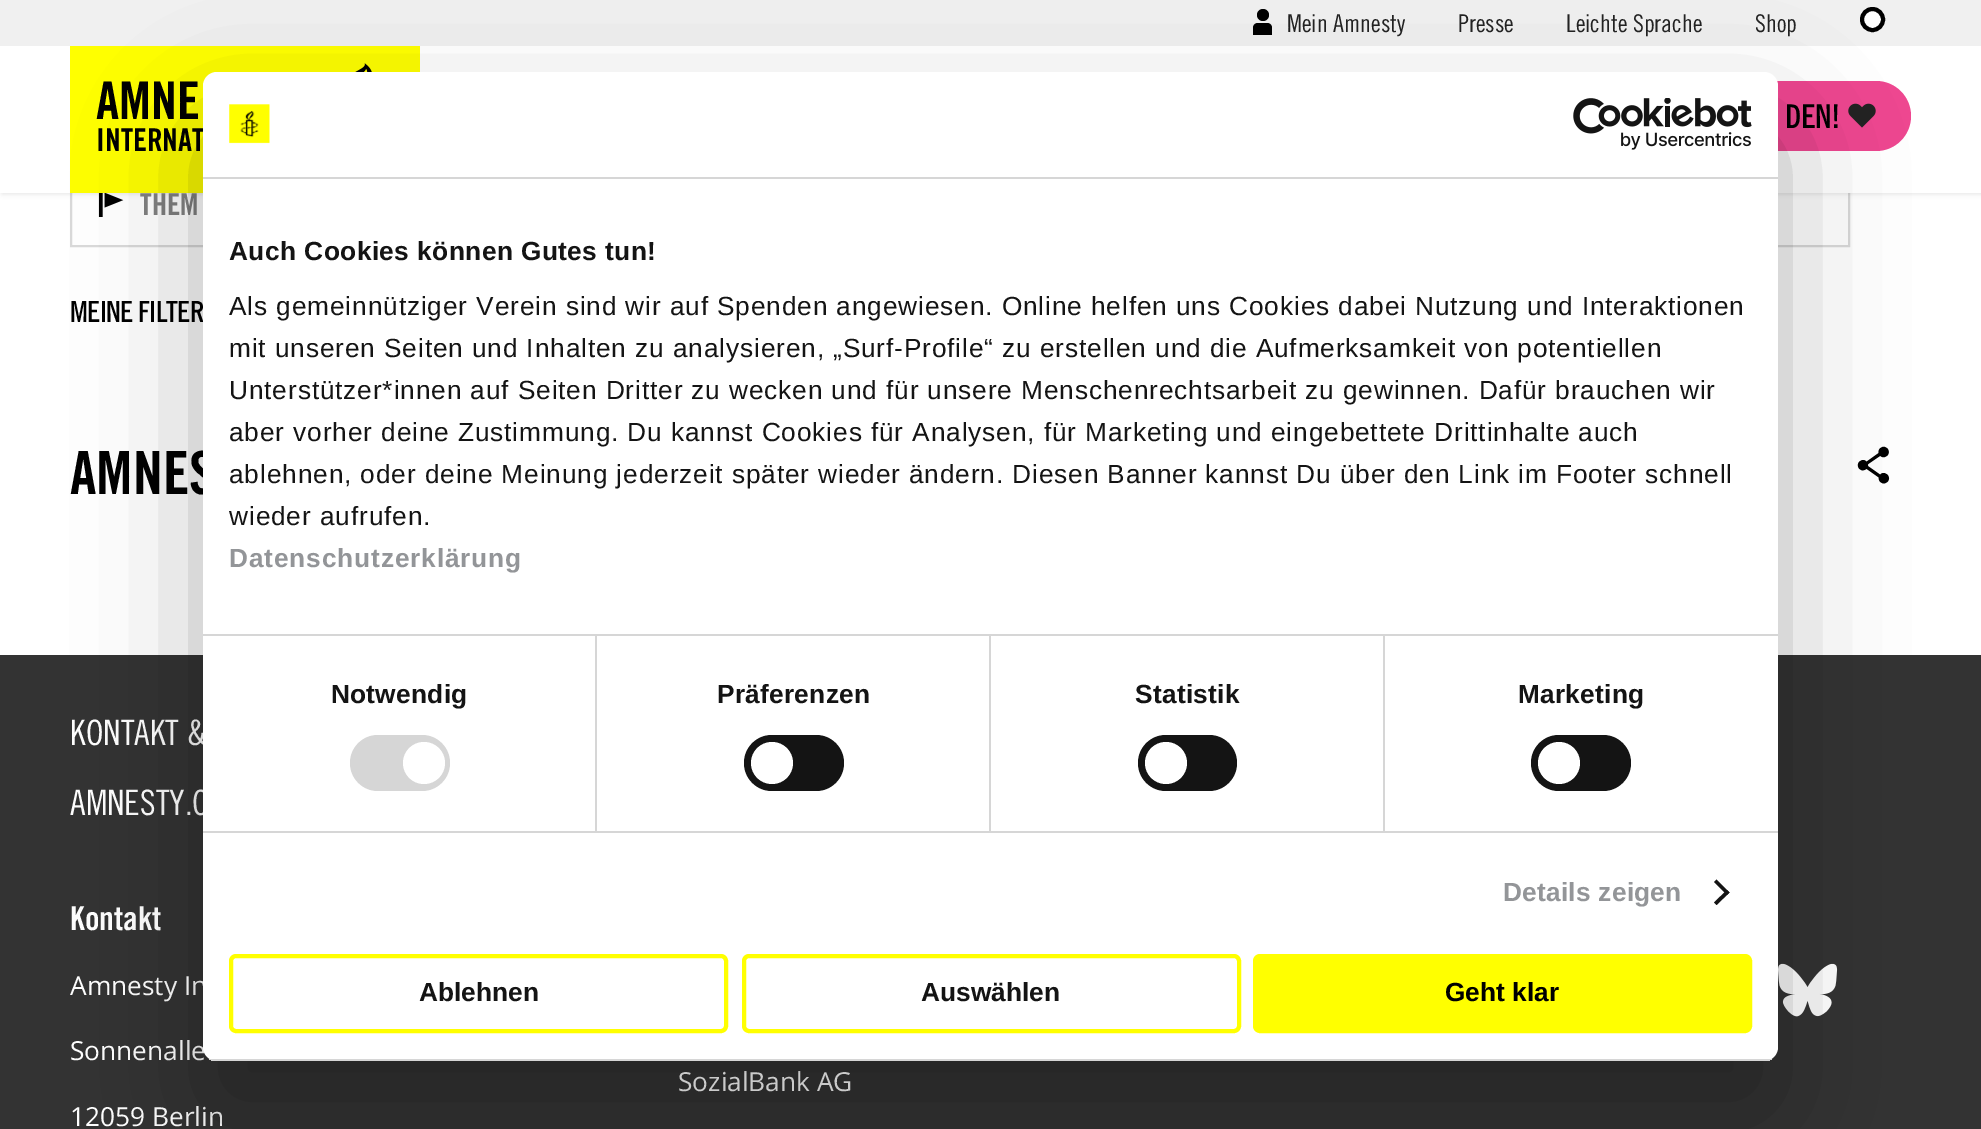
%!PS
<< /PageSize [1981 1129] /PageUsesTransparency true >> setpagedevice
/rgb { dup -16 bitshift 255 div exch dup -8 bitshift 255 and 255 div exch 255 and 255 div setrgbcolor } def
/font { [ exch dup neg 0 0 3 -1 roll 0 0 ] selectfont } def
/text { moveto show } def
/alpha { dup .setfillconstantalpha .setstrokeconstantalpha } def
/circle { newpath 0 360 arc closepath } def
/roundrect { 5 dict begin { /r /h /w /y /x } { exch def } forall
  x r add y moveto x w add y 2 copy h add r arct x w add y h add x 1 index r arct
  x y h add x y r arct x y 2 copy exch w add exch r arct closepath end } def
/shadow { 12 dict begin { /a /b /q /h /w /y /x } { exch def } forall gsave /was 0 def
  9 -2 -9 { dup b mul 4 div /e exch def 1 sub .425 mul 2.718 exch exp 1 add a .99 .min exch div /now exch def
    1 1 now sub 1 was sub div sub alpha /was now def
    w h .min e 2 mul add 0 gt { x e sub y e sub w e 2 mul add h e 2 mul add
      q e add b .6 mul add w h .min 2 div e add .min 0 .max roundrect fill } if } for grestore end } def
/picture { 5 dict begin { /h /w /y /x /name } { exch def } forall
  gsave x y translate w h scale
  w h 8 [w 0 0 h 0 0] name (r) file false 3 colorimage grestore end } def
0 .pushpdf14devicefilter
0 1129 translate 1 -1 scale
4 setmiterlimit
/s1 { /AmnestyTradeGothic-Regular 24.5 font 16#222222 rgb } def
/s2 { /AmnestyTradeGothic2-Bold 52 font 16#000000 rgb } def
/s3 { /AmnestyTradeGothic2-Bold 31.5 font 16#000000 rgb } def
/s4 { /AmnestyTradeGothic-Bold 31.5 font 16#000000 rgb } def
/s5 { /AmnestyTradeGothic2-Bold 30 font 16#808080 rgb } def
/s6 { /AmnestyTradeGothic-Bold 28 font 16#000000 rgb } def
/s7 { /AmnestyTradeGothic2-Bold 59.5 font 16#000000 rgb } def
/s8 { /AmnestyTradeGothic-Regular 35 font 16#FFFFFF rgb } def
/s9 { /AmnestyTradeGothic2-Bold 33 font 16#FFFFFF rgb } def
/s10 { /OpenSans-Regular 26.25 font 16#FFFFFF rgb } def
/s11 { /LiberationSans-Bold 26.25 font 16#141414 rgb } def
/s12 { /LiberationSans-Bold 26.25 font 16#000000 rgb } def
16#FFFFFF rgb
0 0 1981 1129 rectfill
(pic3.raw) 98 193 26 24 picture
16#DADADA rgb
2 setlinewidth
71 162 579 84 rectstroke
1268 162 581 84 rectstroke
16#000000 rgb
2 2 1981 192 0 2.5 0.1 shadow
16#FFFFFF rgb
0 46 1981 147 rectfill
16#F0F0F0 rgb
0 0 1981 46 rectfill
16#000000 rgb
1263 15 6 circle fill
s1
(Mein Amnesty) 1287 32 text
16#000000 rgb
1258 23 moveto 1267 23 lineto 1270 23 1272 25 1272 28 curveto 1272 35 lineto 1253 35 lineto 1253 28 lineto 1253 25 1255 23 1258 23 curveto closepath fill
s1
(Presse) 1458 32 text
(Leichte Sprache) 1566 32 text
(Shop) 1755 32 text
16#FFFFFF rgb
1872.5 19.5 10.5 circle gsave fill grestore
16#000000 rgb
4 setlinewidth
stroke
16#FFFF00 rgb
70 46 350 147 rectfill
(pic1.raw) 355 63 17 9 picture
s2
(AMNE) 96 119 text
s3
(INTERNAT) 96 151 text
16#EE4790 rgb
1624 81 287 70 35 roundrect fill
(pic2.raw) 1848 103 28 25 picture
s4
(DEN!) 1785 128 text
s5
(THEM) 140 215 text
s6
(MEINE FILTER) 70 322 text
s7
(AMNES) 70 494 text
(pic4.raw) 1857 446 33 38 picture
16#333333 rgb
0 655 1981 474 rectfill
s8
(KONTAKT &) 70 745 text
(AMNESTY.O) 70 815 text
s9
(Kontakt) 70 930 text
s10
(Amnesty In) 70 995 text
(Sonnenalle) 70 1060 text
(12059 Berlin) 70 1126 text
(pic5.raw) 1778 963 60 54 picture
(SozialBank AG) 678 1091 text
16#000000 rgb
203 128 1575 989 14 59.5 0.3 shadow
16#FFFFFF rgb
203 72 1575 989 14 roundrect fill
16#D6D6D6 rgb
203 177 1575 2 rectfill
(pic6.raw) 229 104 41 40 picture
(pic7.raw) 1573 98 179 52 picture
595 635 2 196 rectfill
989 635 2 196 rectfill
1383 635 2 196 rectfill
203 634 1575 2 rectfill
/LiberationSans-Bold 26.25 font
16#141414 rgb
229 260 moveto 0.45 0 (Auch Cookies können Gutes tun!) ashow
/LiberationSans-Regular 26.25 font
229 315 moveto 0.88 0 (Als gemeinnütziger Verein sind wir auf Spenden angewiesen. Online helfen uns Cookies dabei Nutzung und Interaktionen) ashow
229 357 moveto 0.88 0 (mit unseren Seiten und Inhalten zu analysieren, „Surf-Profile“ zu erstellen und die Aufmerksamkeit von potentiellen) ashow
229 399 moveto 0.88 0 (Unterstützer*innen auf Seiten Dritter zu wecken und für unsere Menschenrechtsarbeit zu gewinnen. Dafür brauchen wir) ashow
229 441 moveto 0.88 0 (aber vorher deine Zustimmung. Du kannst Cookies für Analysen, für Marketing und eingebettete Drittinhalte auch) ashow
229 483 moveto 0.88 0 (ablehnen, oder deine Meinung jederzeit später wieder ändern. Diesen Banner kannst Du über den Link im Footer schnell) ashow
229 525 moveto 0.88 0 (wieder aufrufen.) ashow
/LiberationSans-Bold 26.25 font
16#939598 rgb
229 567 moveto 0.88 0 (Datenschutzerklärung) ashow
16#D6D6D6 rgb
203 831 1575 2 rectfill
16#141414 rgb
331 703 moveto 0.25 0 (Notwendig) ashow
16#D6D6D6 rgb
350 735 100 56 28 roundrect fill
16#FFFFFF rgb
424 763 21 circle fill
16#141414 rgb
717 703 moveto 0.25 0 (Präferenzen) ashow
744 735 100 56 28 roundrect fill
16#FFFFFF rgb
772 763 21 circle fill
16#141414 rgb
1135 703 moveto 0.25 0 (Statistik) ashow
1138 735 99 56 28 roundrect fill
16#FFFFFF rgb
1166 763 21 circle fill
16#141414 rgb
1518 703 moveto 0.25 0 (Marketing) ashow
1531 735 100 56 28 roundrect fill
16#FFFFFF rgb
1559 763 21 circle fill
16#939598 rgb
1503 901 moveto 0.25 0 (Details zeigen) ashow
16#141414 rgb
1716.5 879.5 moveto 1729.5 892.5 lineto 1727 895 lineto 1714 882 lineto closepath fill
1727 890 moveto 1729.5 892.5 lineto 1716.5 905 lineto 1714 902.5 lineto closepath fill
gsave
203 72 1575 989 14 roundrect clip newpath
16#D6D6D6 rgb
203 1059 1575 2 rectfill
grestore
16#FFFF00 rgb
231 956 495 75 5 roundrect stroke
s11
(Ablehnen) 419 1001 text
16#FFFF00 rgb
744 956 495 75 5 roundrect stroke
s11
(Auswählen) 921 1001 text
16#FFFF00 rgb
1255 956 495 75 5 roundrect gsave fill grestore
stroke
s12
(Geht klar) 1445 1001 text
.poppdf14devicefilter showpage
